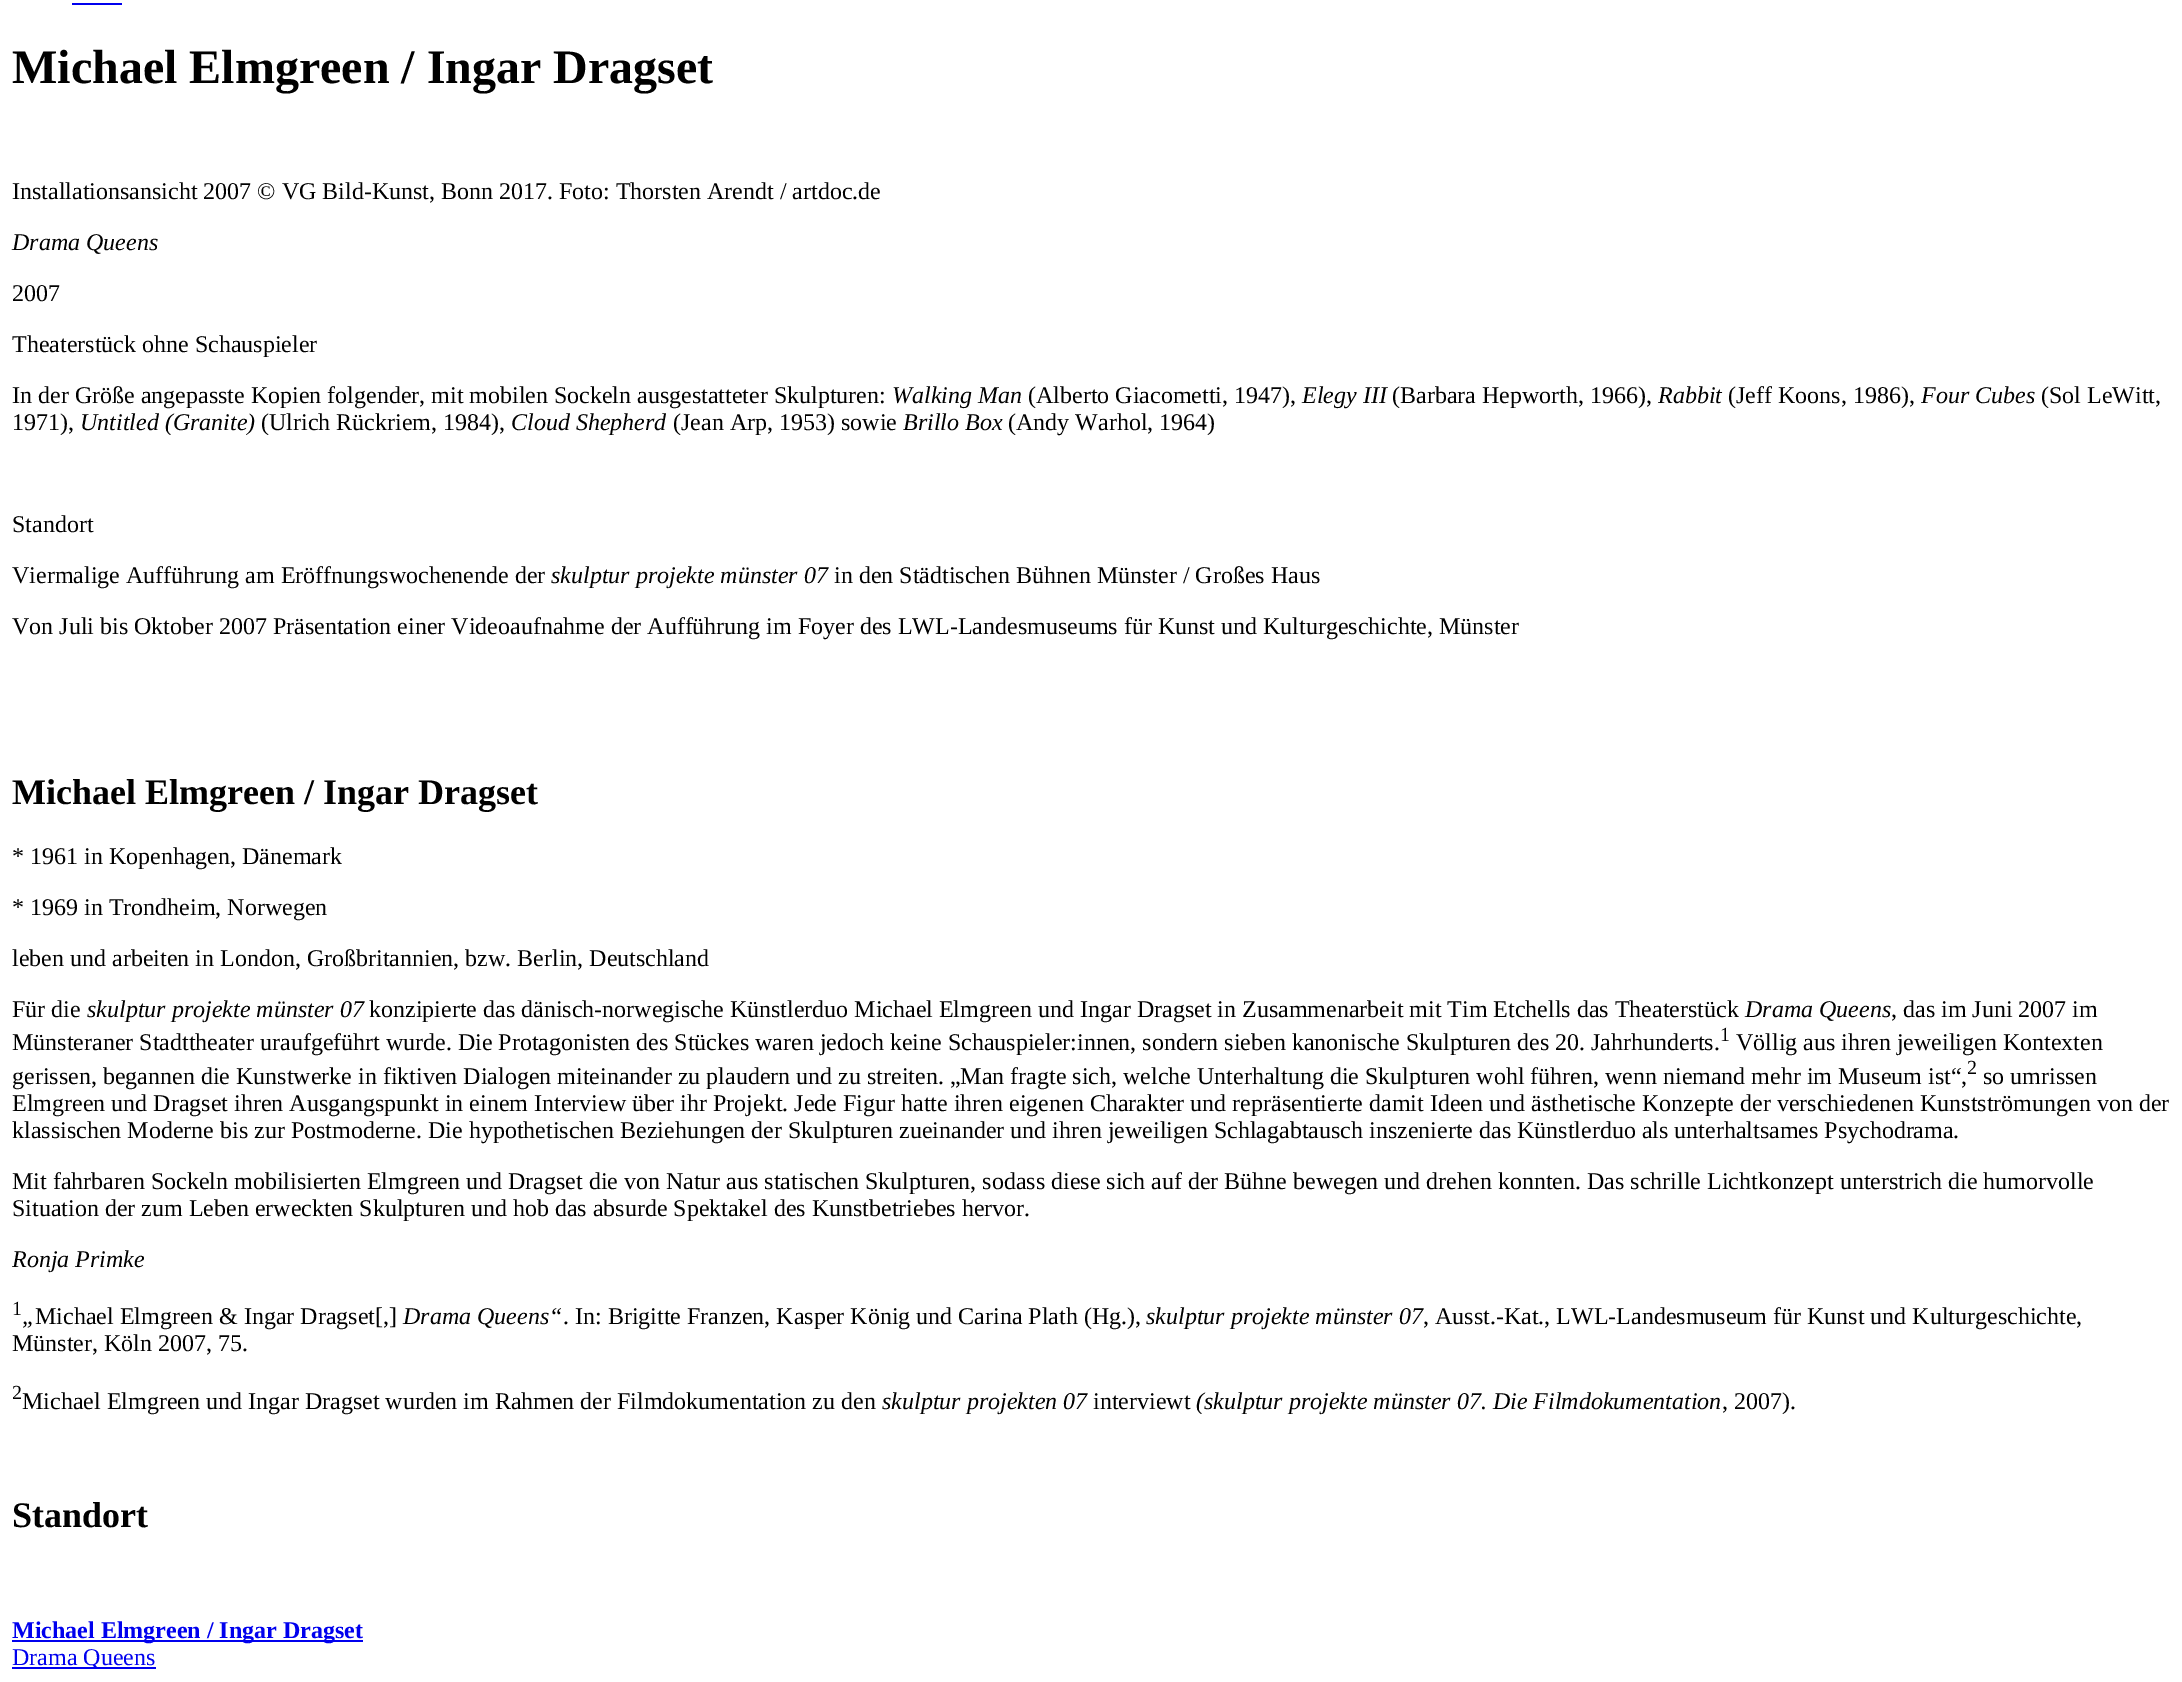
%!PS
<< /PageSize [2182 1682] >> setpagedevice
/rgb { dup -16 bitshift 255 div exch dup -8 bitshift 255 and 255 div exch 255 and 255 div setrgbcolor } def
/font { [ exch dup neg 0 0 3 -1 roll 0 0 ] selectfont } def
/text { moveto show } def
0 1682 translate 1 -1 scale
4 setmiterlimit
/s1 { /LiberationSerif-Bold 48 font 16#000000 rgb } def
/s2 { /LiberationSerif-Regular 24 font 16#000000 rgb } def
/s3 { /LiberationSerif-Italic 24 font 16#000000 rgb } def
/s4 { /LiberationSerif-Bold 36 font 16#000000 rgb } def
/s5 { /LiberationSerif-Regular 20 font 16#000000 rgb } def
/s6 { /LiberationSerif-Bold 24 font 16#0000EE rgb } def
/s7 { /LiberationSerif-Regular 24 font 16#0000EE rgb } def
16#FFFFFF rgb
0 0 2182 1682 rectfill
16#0000EE rgb
72 3 50 2 rectfill
s1
(Michael Elmgreen / Ingar Dragset) 12 83 text
s2
(Installationsansicht 2007 © VG Bild-Kunst, Bonn 2017. Foto: Thorsten Arendt / artdoc.de) 12 199 text
s3
(Drama Queens) 12 250 text
s2
(2007) 12 301 text
(Theaterstück ohne Schauspieler) 12 352 text
(In der Größe angepasste Kopien folgender, mit mobilen Sockeln ausgestatteter Skulpturen:) 12 403 text
s3
(Walking Man) 892 403 text
s2
(\(Alberto Giacometti, 1947\),) 1028 403 text
s3
(Elegy III) 1302 403 text
s2
(\(Barbara Hepworth, 1966\),) 1392 403 text
s3
(Rabbit) 1658 403 text
s2
(\(Jeff Koons, 1986\),) 1728 403 text
s3
(Four Cubes) 1921 403 text
s2
(\(Sol LeWitt,) 2041 403 text
(1971\),) 12 430 text
s3
(Untitled \(Granite\)) 80 430 text
s2
(\(Ulrich Rückriem, 1984\),) 261 430 text
s3
(Cloud Shepherd) 511 430 text
s2
(\(Jean Arp, 1953\) sowie) 673 430 text
s3
(Brillo Box) 903 430 text
s2
(\(Andy Warhol, 1964\)) 1008 430 text
(Standort) 12 532 text
(Viermalige Aufführung am Eröffnungswochenende der) 12 583 text
s3
(skulptur projekte münster 07) 551 583 text
s2
(in den Städtischen Bühnen Münster / Großes Haus) 834 583 text
(Von Juli bis Oktober 2007 Präsentation einer Videoaufnahme der Aufführung im Foyer des LWL-Landesmuseums für Kunst und Kulturgeschichte, Münster) 12 634 text
s4
(Michael Elmgreen / Ingar Dragset) 12 804 text
s2
(* 1961 in Kopenhagen, Dänemark) 12 864 text
(* 1969 in Trondheim, Norwegen) 12 915 text
(leben und arbeiten in London, Großbritannien, bzw. Berlin, Deutschland) 12 966 text
(Für die) 12 1017 text
s3
(skulptur projekte münster 07) 87 1017 text
s2
(konzipierte das dänisch-norwegische Künstlerduo Michael Elmgreen und Ingar Dragset in Zusammenarbeit mit Tim Etchells das Theaterstück) 369 1017 text
s3
(Drama Queens) 1745 1017 text
s2
(, das im Juni 2007 im) 1891 1017 text
(Münsteraner Stadttheater uraufgeführt wurde. Die Protagonisten des Stückes waren jedoch keine Schauspieler:innen, sondern sieben kanonische Skulpturen des 20. Jahrhunderts.) 12 1050 text
s5
(1) 1720 1041 text
s2
(Völlig aus ihren jeweiligen Kontexten) 1736 1050 text
(gerissen, begannen die Kunstwerke in fiktiven Dialogen miteinander zu plaudern und zu streiten. „Man fragte sich, welche Unterhaltung die Skulpturen wohl führen, wenn niemand mehr im Museum ist“,) 12 1084 text
s5
(2) 1967 1074 text
s2
(so umrissen) 1983 1084 text
(Elmgreen und Dragset ihren Ausgangspunkt in einem Interview über ihr Projekt. Jede Figur hatte ihren eigenen Charakter und repräsentierte damit Ideen und ästhetische Konzepte der verschiedenen Kunstströmungen von der) 12 1111 text
(klassischen Moderne bis zur Postmoderne. Die hypothetischen Beziehungen der Skulpturen zueinander und ihren jeweiligen Schlagabtausch inszenierte das Künstlerduo als unterhaltsames Psychodrama.) 12 1138 text
(Mit fahrbaren Sockeln mobilisierten Elmgreen und Dragset die von Natur aus statischen Skulpturen, sodass diese sich auf der Bühne bewegen und drehen konnten. Das schrille Lichtkonzept unterstrich die humorvolle) 12 1189 text
(Situation der zum Leben erweckten Skulpturen und hob das absurde Spektakel des Kunstbetriebes hervor.) 12 1216 text
s3
(Ronja Primke) 12 1267 text
s5
(1) 12 1315 text
s3
(„) 22 1324 text
s2
(Michael Elmgreen & Ingar Dragset[,]) 35 1324 text
s3
(Drama Queens“) 403 1324 text
s2
(. In: Brigitte Franzen, Kasper König und Carina Plath \(Hg.\),) 563 1324 text
s3
(skulptur projekte münster 07) 1146 1324 text
s2
(, Ausst.-Kat., LWL-Landesmuseum für Kunst und Kulturgeschichte,) 1423 1324 text
(Münster, Köln 2007, 75.) 12 1351 text
s5
(2) 12 1399 text
s2
(Michael Elmgreen und Ingar Dragset wurden im Rahmen der Filmdokumentation zu den) 22 1409 text
s3
(skulptur projekten 07) 882 1409 text
s2
(interviewt) 1093 1409 text
s3
(\(skulptur projekte münster 07. Die Filmdokumentation) 1196 1409 text
s2
(, 2007\).) 1722 1409 text
s4
(Standort) 12 1527 text
16#0000EE rgb
12 1640 351 2 rectfill
s6
(Michael Elmgreen / Ingar Dragset) 12 1638 text
12 1667 144 2 rectfill
s7
(Drama Queens) 12 1665 text
showpage
